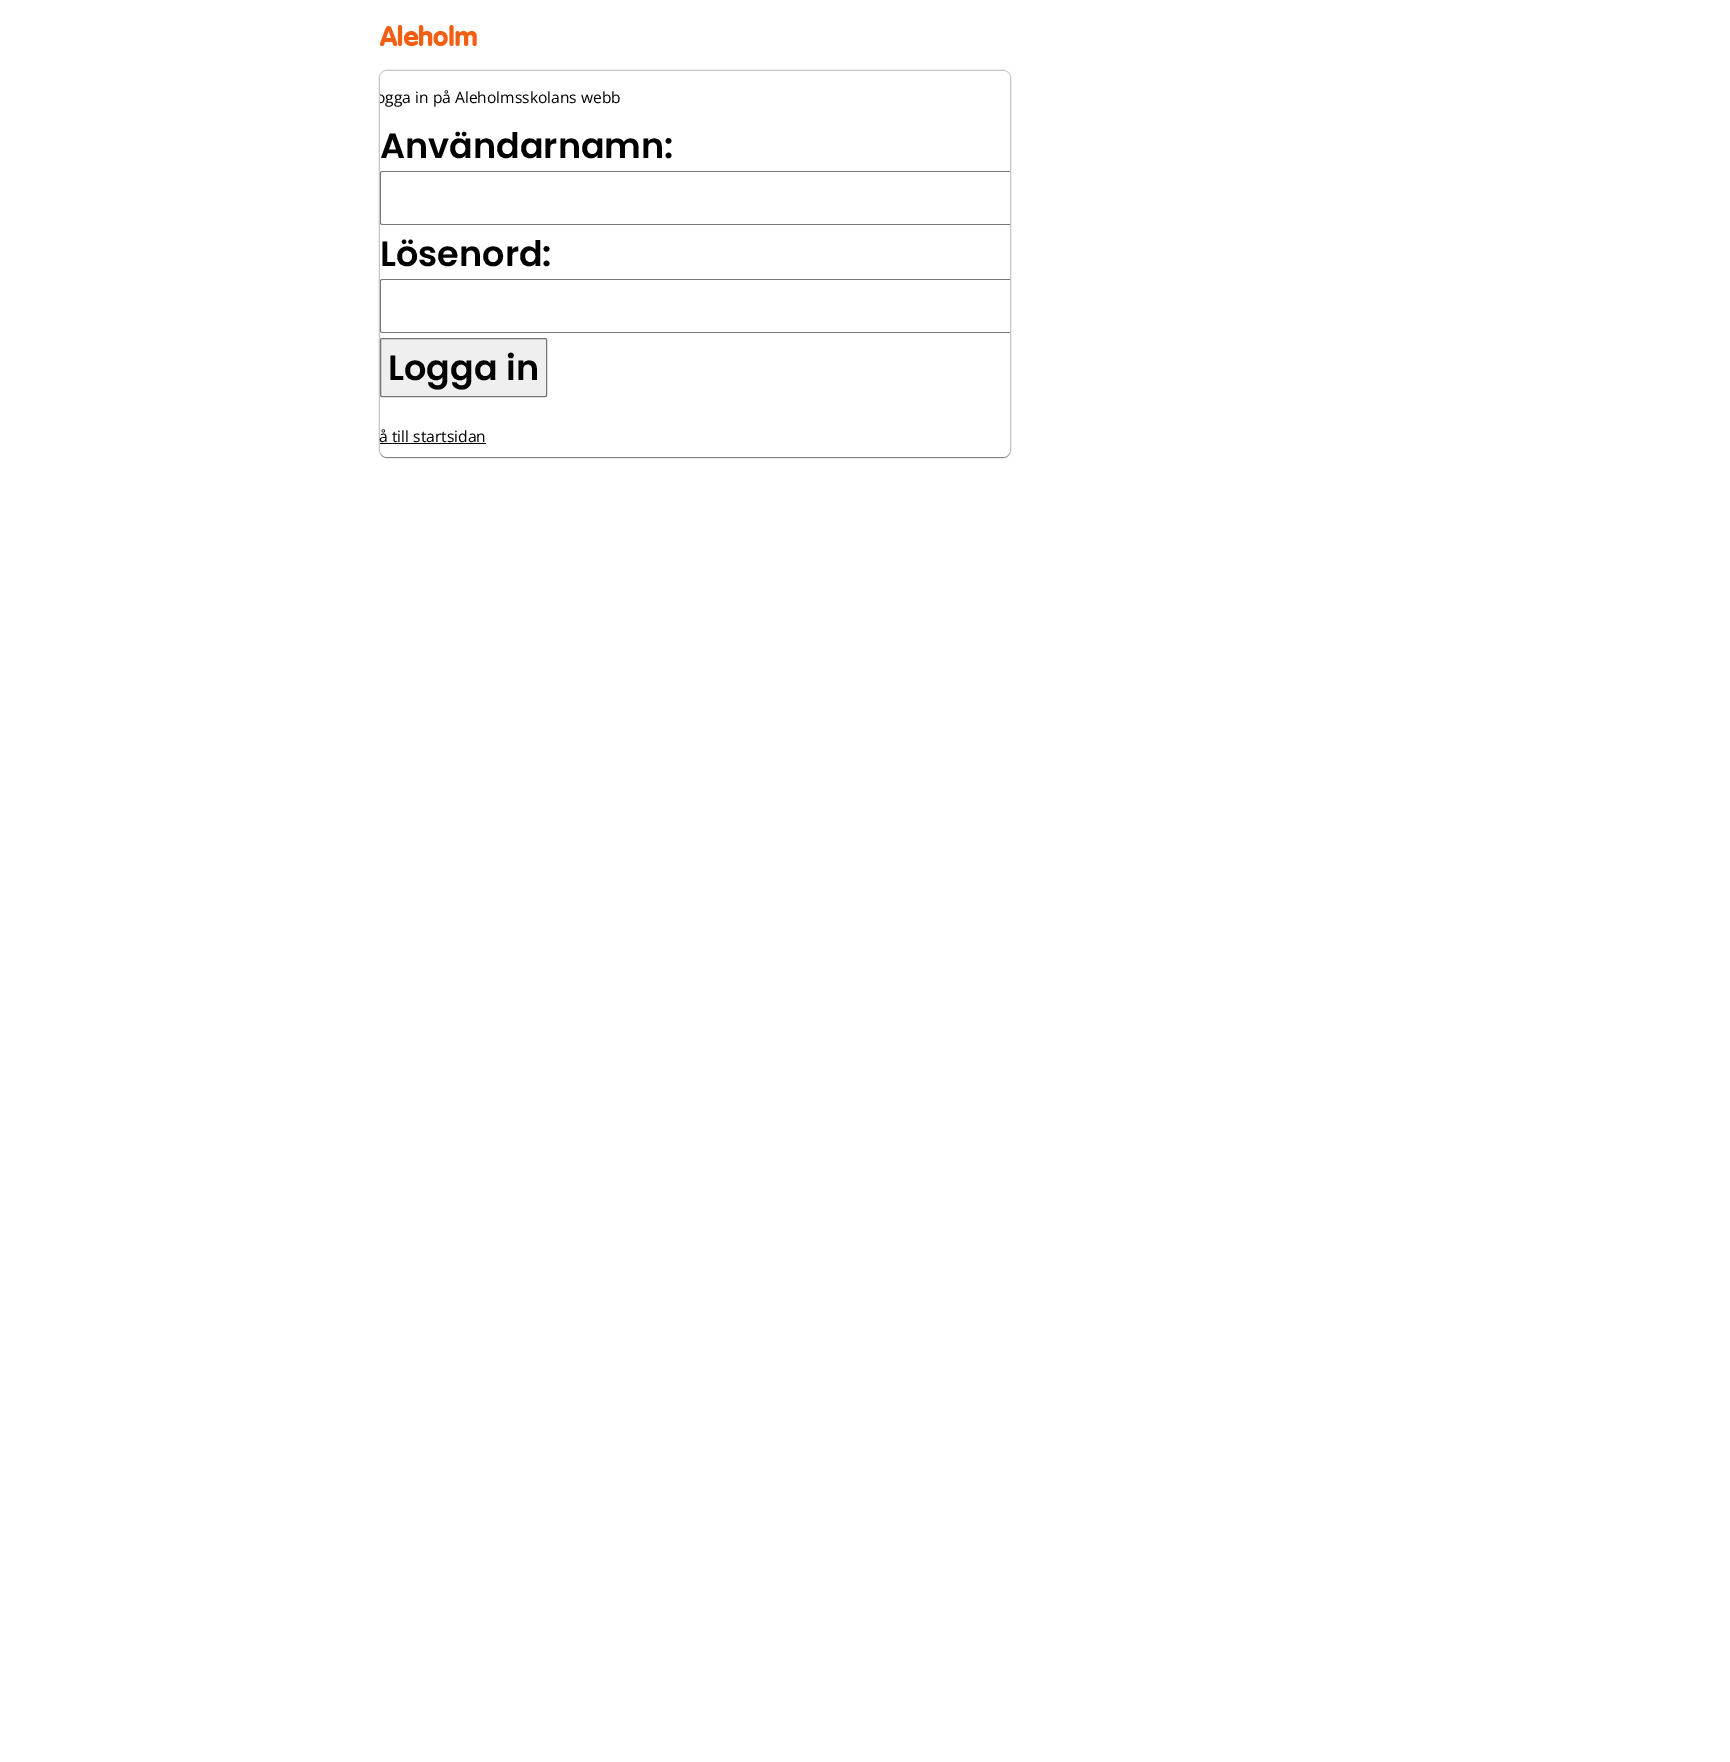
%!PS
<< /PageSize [1730 1762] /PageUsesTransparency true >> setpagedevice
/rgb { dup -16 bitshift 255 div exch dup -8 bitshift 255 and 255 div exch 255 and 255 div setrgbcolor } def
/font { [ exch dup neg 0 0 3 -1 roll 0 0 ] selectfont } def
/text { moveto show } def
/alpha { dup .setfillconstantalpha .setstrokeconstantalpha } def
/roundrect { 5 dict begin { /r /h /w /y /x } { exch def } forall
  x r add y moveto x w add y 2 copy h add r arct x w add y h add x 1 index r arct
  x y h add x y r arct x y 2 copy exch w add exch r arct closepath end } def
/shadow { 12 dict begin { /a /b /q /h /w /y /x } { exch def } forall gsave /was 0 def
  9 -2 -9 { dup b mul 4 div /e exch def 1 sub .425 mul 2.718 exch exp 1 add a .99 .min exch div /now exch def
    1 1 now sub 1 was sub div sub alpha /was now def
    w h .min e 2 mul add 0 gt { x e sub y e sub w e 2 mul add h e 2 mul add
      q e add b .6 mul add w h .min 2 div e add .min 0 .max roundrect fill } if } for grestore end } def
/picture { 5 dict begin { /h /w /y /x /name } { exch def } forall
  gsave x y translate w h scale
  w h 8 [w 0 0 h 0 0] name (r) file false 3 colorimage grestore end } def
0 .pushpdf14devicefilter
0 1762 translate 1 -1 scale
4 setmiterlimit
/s1 { /OpenSans-Regular 15.6 font 16#000000 rgb } def
/s2 { /Poppins-SemiBold 35 font 16#000000 rgb } def
16#FFFFFF rgb
0 0 1730 1762 rectfill
(pic1.raw) 380 25 97 21 picture
16#A6A6A6 rgb
380 450 moveto 380 451 lineto 380 455 383 458 387 458 curveto 1003 458 lineto 1007 458 1010 455 1010 451 curveto 1010 450 lineto 1010 454 1007 457 1003 457 curveto 387 457 lineto 383 457 380 454 380 450 curveto closepath fill
16#000002 rgb
379 70 632 388 8 0.5 0.25 shadow
16#FFFFFF rgb
380 71 630 386 7 roundrect fill
gsave
380 71 630 386 7 roundrect clip newpath
s1
(ogga in på Aleholmsskolans webb) 376 103 text
grestore
s2
(Användarnamn:) 380 158 text
16#767676 rgb
382 171 moveto 380 172 lineto 380 224 lineto 382 225 lineto 1010 225 lineto 1010 224 lineto 382 224 lineto 381 224 381 224 381 223 curveto 381 173 lineto 381 172 381 172 382 172 curveto 1010 172 lineto 1010 171 lineto closepath fill
s2
(Lösenord:) 380 266 text
16#767676 rgb
382 279 moveto 380 280 lineto 380 332 lineto 382 333 lineto 1010 333 lineto 1010 332 lineto 382 332 lineto 381 332 381 332 381 331 curveto 381 281 lineto 381 280 381 280 382 280 curveto 1010 280 lineto 1010 279 lineto closepath fill
16#EFEFEF rgb
380.5 338.5 166 58 1.5 roundrect gsave fill grestore
16#767676 rgb
stroke
s2
(Logga in) 388 380 text
s1
(å till startsidan) 379 442 text
380 443 106 1 rectfill
.poppdf14devicefilter showpage
